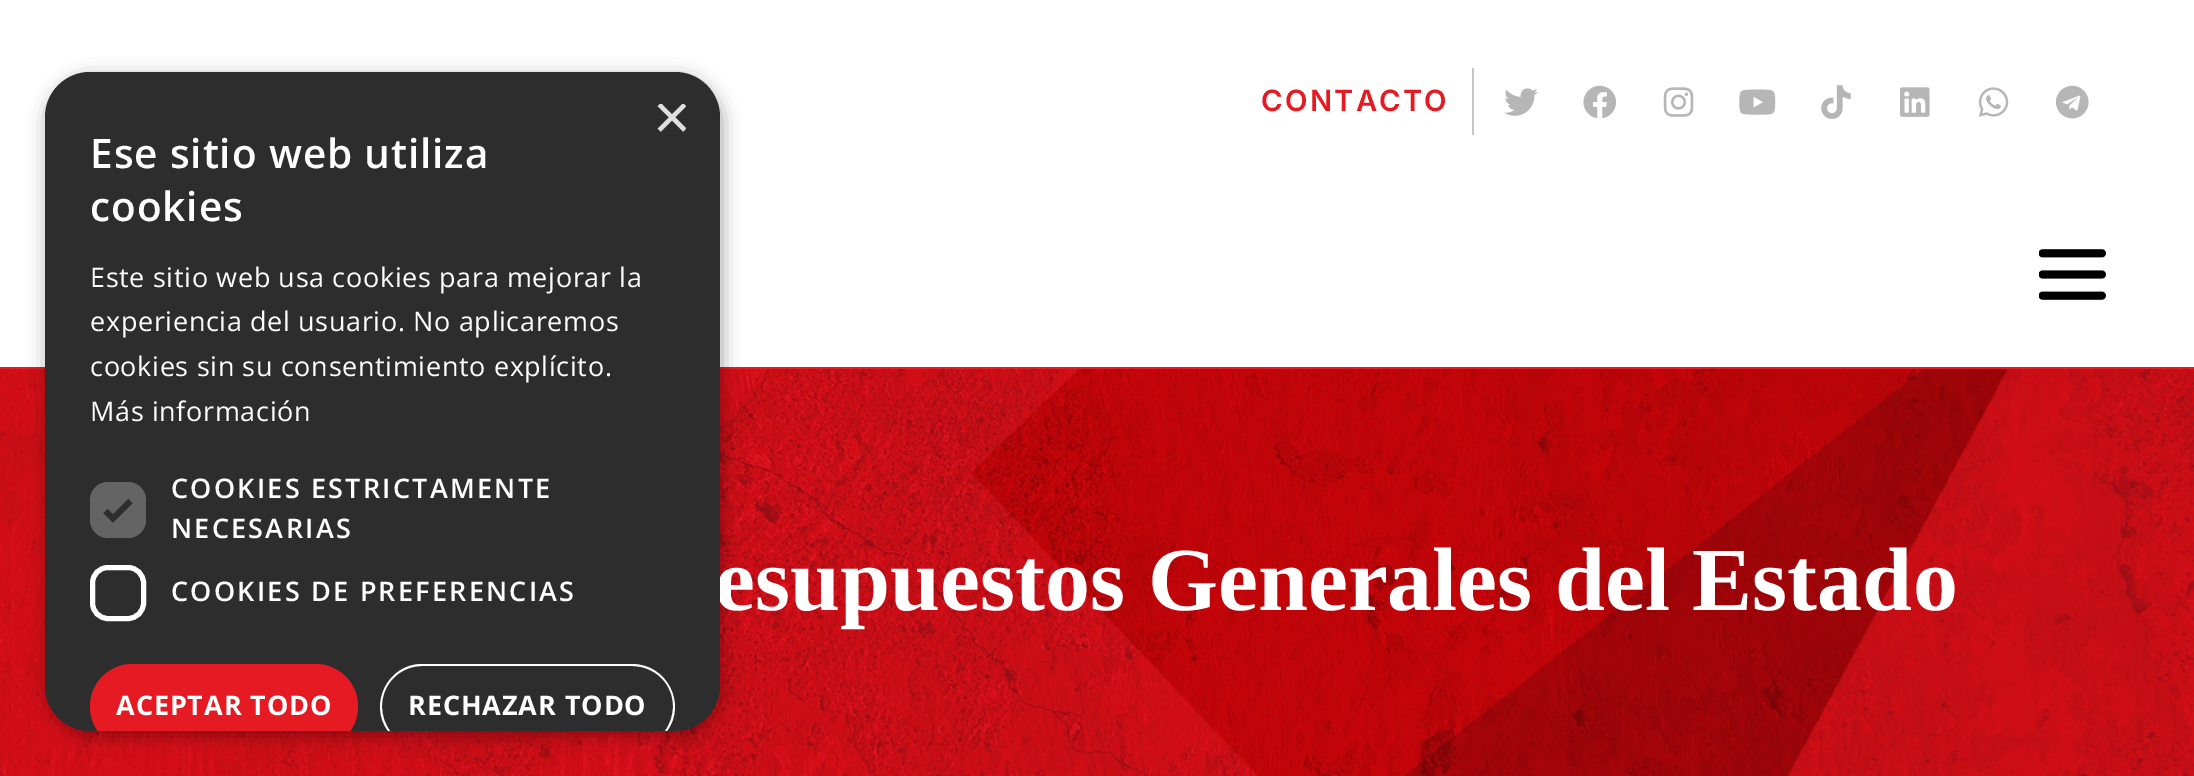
%!PS
<< /PageSize [2194 776] /PageUsesTransparency true >> setpagedevice
/rgb { dup -16 bitshift 255 div exch dup -8 bitshift 255 and 255 div exch 255 and 255 div setrgbcolor } def
/font { [ exch dup neg 0 0 3 -1 roll 0 0 ] selectfont } def
/text { moveto show } def
/alpha { dup .setfillconstantalpha .setstrokeconstantalpha } def
/roundrect { 5 dict begin { /r /h /w /y /x } { exch def } forall
  x r add y moveto x w add y 2 copy h add r arct x w add y h add x 1 index r arct
  x y h add x y r arct x y 2 copy exch w add exch r arct closepath end } def
/shadow { 12 dict begin { /a /b /q /h /w /y /x } { exch def } forall gsave /was 0 def
  9 -2 -9 { dup b mul 4 div /e exch def 1 sub .425 mul 2.718 exch exp 1 add a .99 .min exch div /now exch def
    1 1 now sub 1 was sub div sub alpha /was now def
    w h .min e 2 mul add 0 gt { x e sub y e sub w e 2 mul add h e 2 mul add
      q e add b .6 mul add w h .min 2 div e add .min 0 .max roundrect fill } if } for grestore end } def
/picture { 5 dict begin { /h /w /y /x /name } { exch def } forall
  gsave x y translate w h scale
  w h 8 [w 0 0 h 0 0] name (r) file false 3 colorimage grestore end } def
0 .pushpdf14devicefilter
0 776 translate 1 -1 scale
4 setmiterlimit
/s1 { /Tinos-Bold 90 font 16#FFFFFF rgb } def
/s2 { /LiberationSans-Regular 65 font 16#E0E0E0 rgb } def
16#FFFFFF rgb
0 0 2194 776 rectfill
/Inter-SemiBold 29.25 font
16#E51A22 rgb
1261 111 moveto 2.25 0 (CONTACTO) ashow
16#C5C5C5 rgb
1472 68 2 67 rectfill
(pic1.raw) 1504 88 34 28 picture
(pic2.raw) 1583 85 34 34 picture
(pic3.raw) 1663 87 31 30 picture
(pic4.raw) 1739 89 37 26 picture
(pic5.raw) 1821 85 30 34 picture
(pic6.raw) 1900 87 30 30 picture
(pic7.raw) 1978 87 31 30 picture
(pic8.raw) 2055 85 34 34 picture
16#E51A22 rgb
0 367 2194 2 rectfill
(pic9.raw) 2039 249 67 51 picture
(pic10.raw) 0 369 2194 407 picture
16#000000 rgb
47 77 675 659 45 9 0.35 shadow
s1
(esupuestos Generales del Estado) 715 610 text
16#2D2D2D rgb
45 72 675 659 45 roundrect fill
gsave
653 104 33 33 rectclip
s2
(×) 653 139 text
grestore
/OpenSans-SemiBold 40.5 font
16#FFFFFF rgb
90 168 moveto 0.9 0 (Ese sitio web utiliza) ashow
90 221 moveto 0.9 0 (cookies) ashow
/OpenSans-Regular 27 font
90 287 moveto 0.65 0 (Este sitio web usa cookies para mejorar la) ashow
90 331 moveto 0.65 0 (experiencia del usuario. No aplicaremos) ashow
90 376 moveto 0.65 0 (cookies sin su consentimiento explícito.) ashow
90 421 moveto 0.65 0 (Más información) ashow
16#646464 rgb
90 482 56 56 18 roundrect fill
16#2D2D2D rgb
5.9 setlinewidth
105.5 511 moveto 113 518.5 lineto 130.5 501 lineto stroke
/OpenSans-SemiBold 27 font
16#FFFFFF rgb
171 498 moveto 2.25 0 (COOKIES ESTRICTAMENTE) ashow
171 538 moveto 2.25 0 (NECESARIAS) ashow
5 setlinewidth
92.5 567.5 51 51 15.5 roundrect stroke
171 601 moveto 2.25 0 (COOKIES DE PREFERENCIAS) ashow
gsave
45 72 675 659 45 roundrect clip newpath
16#E51A22 rgb
90 664 268 85 42.5 roundrect fill
grestore
/OpenSans-Bold 27 font
116 715 moveto 0.9 0 (ACEPTAR TODO) ashow
422 664 moveto 388 664 368 704 388 731 curveto 390 731 lineto 385 724 382 716 382 706 curveto 382 684 400 666 422 666 curveto 632 666 lineto 655 666 673 684 673 706 curveto 673 716 670 724 665 731 curveto 667 731 lineto 687 704 667 664 632 664 curveto closepath fill
408 715 moveto 0.9 0 (RECHAZAR TODO) ashow
.poppdf14devicefilter showpage
